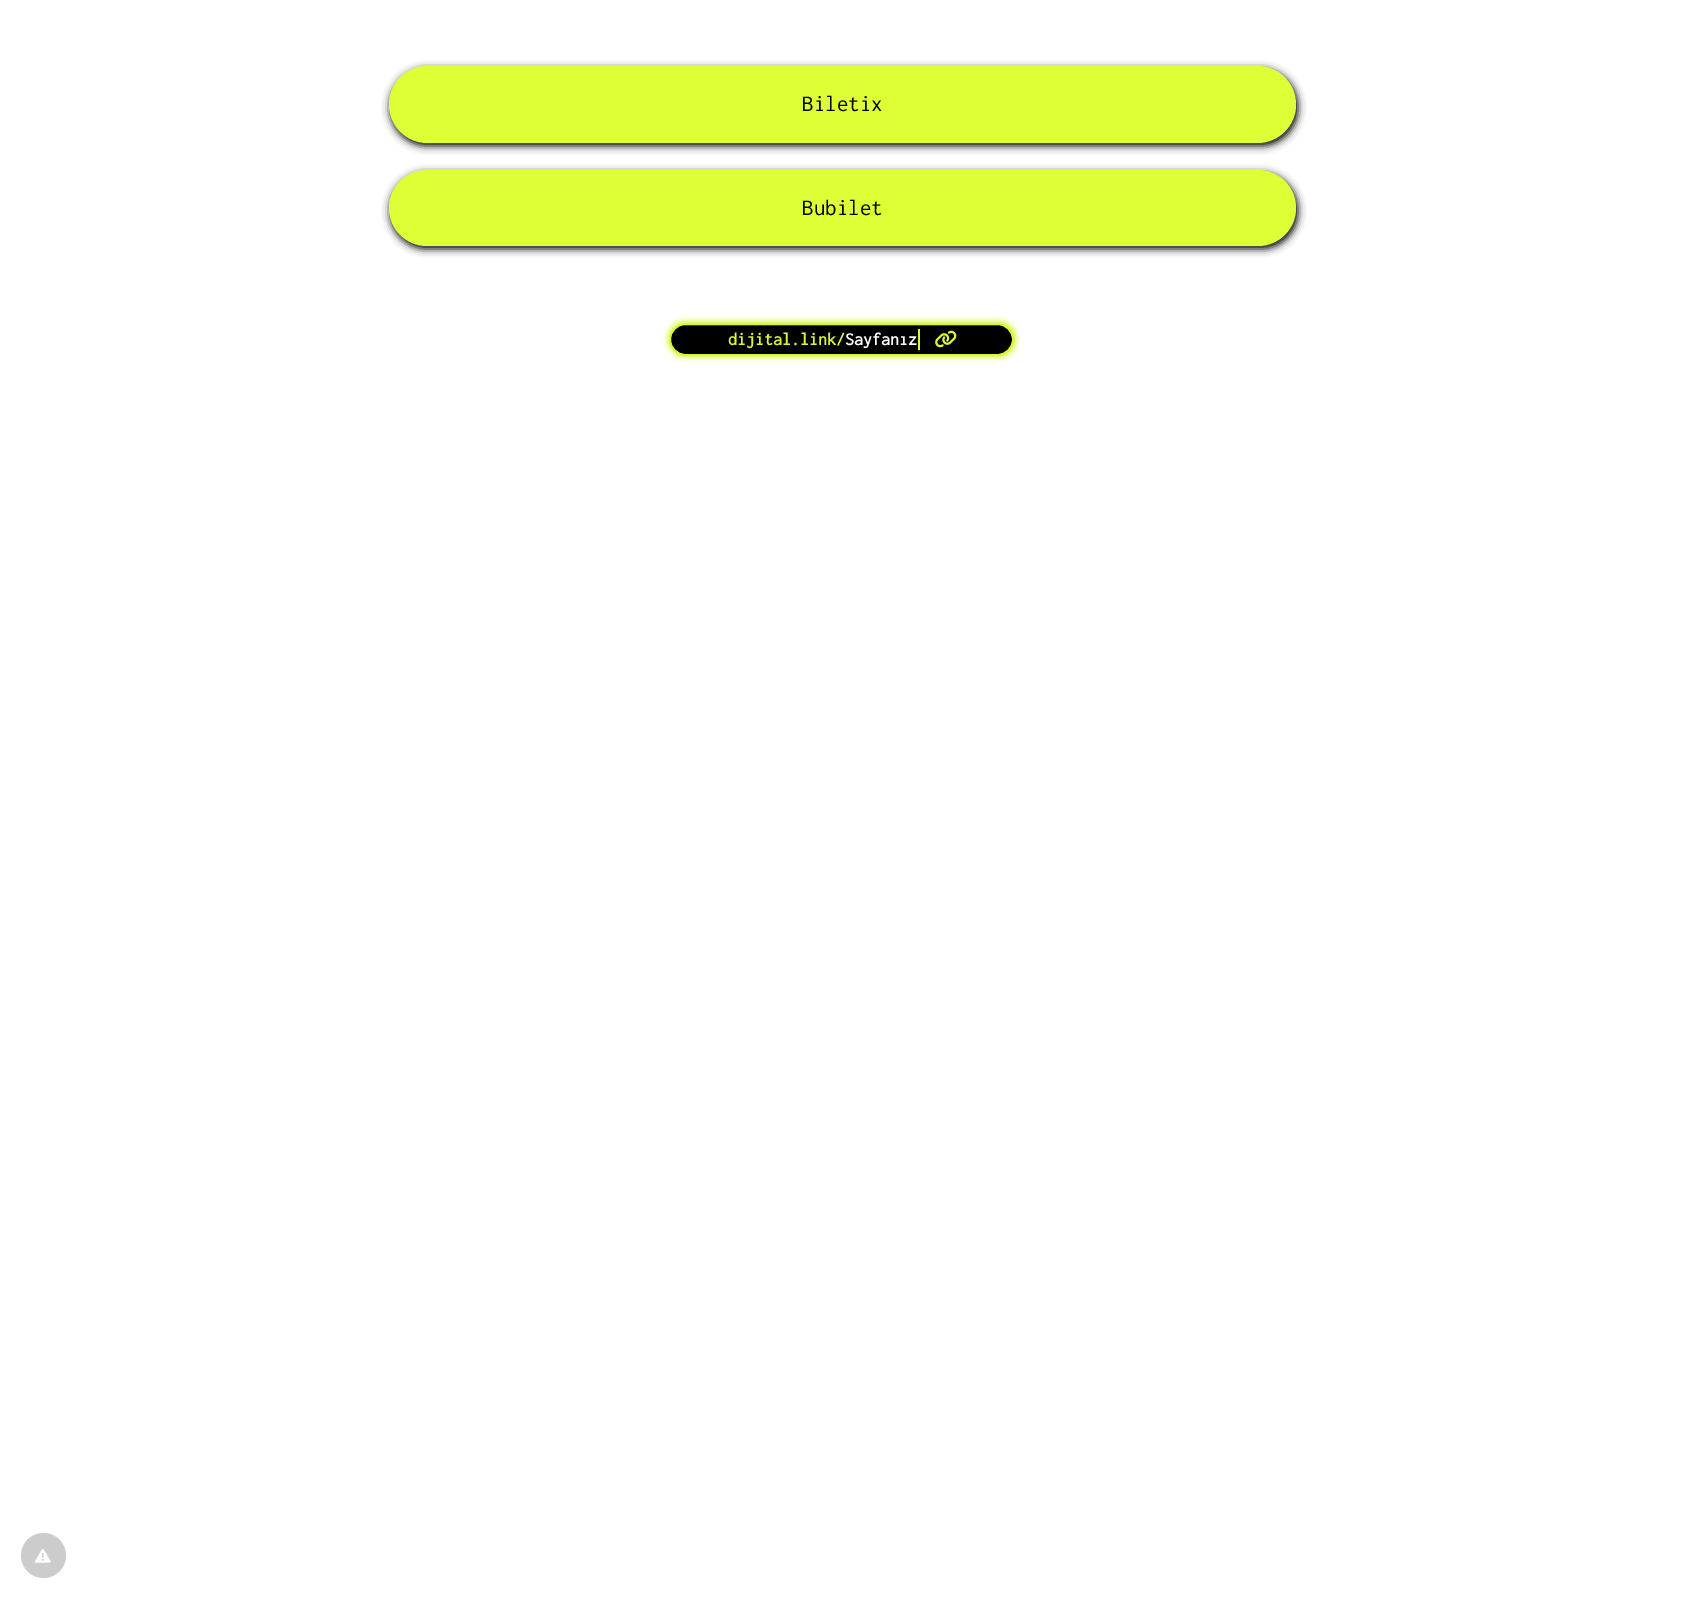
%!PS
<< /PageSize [1684 1599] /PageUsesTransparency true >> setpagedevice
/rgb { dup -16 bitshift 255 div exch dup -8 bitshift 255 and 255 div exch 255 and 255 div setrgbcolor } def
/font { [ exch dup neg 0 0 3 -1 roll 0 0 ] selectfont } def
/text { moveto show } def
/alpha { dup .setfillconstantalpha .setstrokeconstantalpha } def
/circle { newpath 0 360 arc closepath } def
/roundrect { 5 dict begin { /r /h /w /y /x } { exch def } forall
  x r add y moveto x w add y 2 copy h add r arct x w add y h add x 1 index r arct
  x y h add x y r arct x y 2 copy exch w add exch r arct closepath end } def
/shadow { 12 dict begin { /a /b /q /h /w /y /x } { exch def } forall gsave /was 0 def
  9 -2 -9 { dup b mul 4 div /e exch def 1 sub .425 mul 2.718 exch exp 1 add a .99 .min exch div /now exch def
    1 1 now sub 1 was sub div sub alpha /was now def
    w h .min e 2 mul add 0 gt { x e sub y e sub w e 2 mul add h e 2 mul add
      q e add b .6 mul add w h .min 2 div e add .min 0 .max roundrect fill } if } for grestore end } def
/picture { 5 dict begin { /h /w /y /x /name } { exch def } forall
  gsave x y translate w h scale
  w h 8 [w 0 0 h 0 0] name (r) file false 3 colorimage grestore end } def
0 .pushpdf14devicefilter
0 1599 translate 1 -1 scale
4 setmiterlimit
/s1 { /Inconsolata-Regular 23 font 16#000000 rgb } def
/s2 { /Inconsolata-Bold 18 font 16#D8F831 rgb } def
/s3 { /Inconsolata-Bold 18 font 16#FFFFFF rgb } def
16#FFFFFF rgb
0 0 1684 1599 rectfill
16#000000 rgb
390 69 908 77 38.5 4 1 shadow
16#DEFF36 rgb
389 66 907 77 38.5 roundrect fill
s1
(Biletix) 802 111 text
390 173 908 76 38 4 1 shadow
16#DEFF36 rgb
389 170 907 76 38 roundrect fill
s1
(Bubilet) 802 215 text
16#D8F831 rgb
668 321 348 36 18 3 1 shadow
16#000000 rgb
670 324 343 31 15.5 roundrect gsave fill grestore
16#D8F831 rgb
2 setlinewidth
stroke
918 329 2 21 rectfill
s2
(dijital.link/) 728 345 text
s3
(Sayfanız) 845 345 text
(pic1.raw) 935 330 22 18 picture
16#CCCCCC rgb
43.5 1555.5 22.5 circle fill
(pic2.raw) 35 1549 16 14 picture
.poppdf14devicefilter showpage
